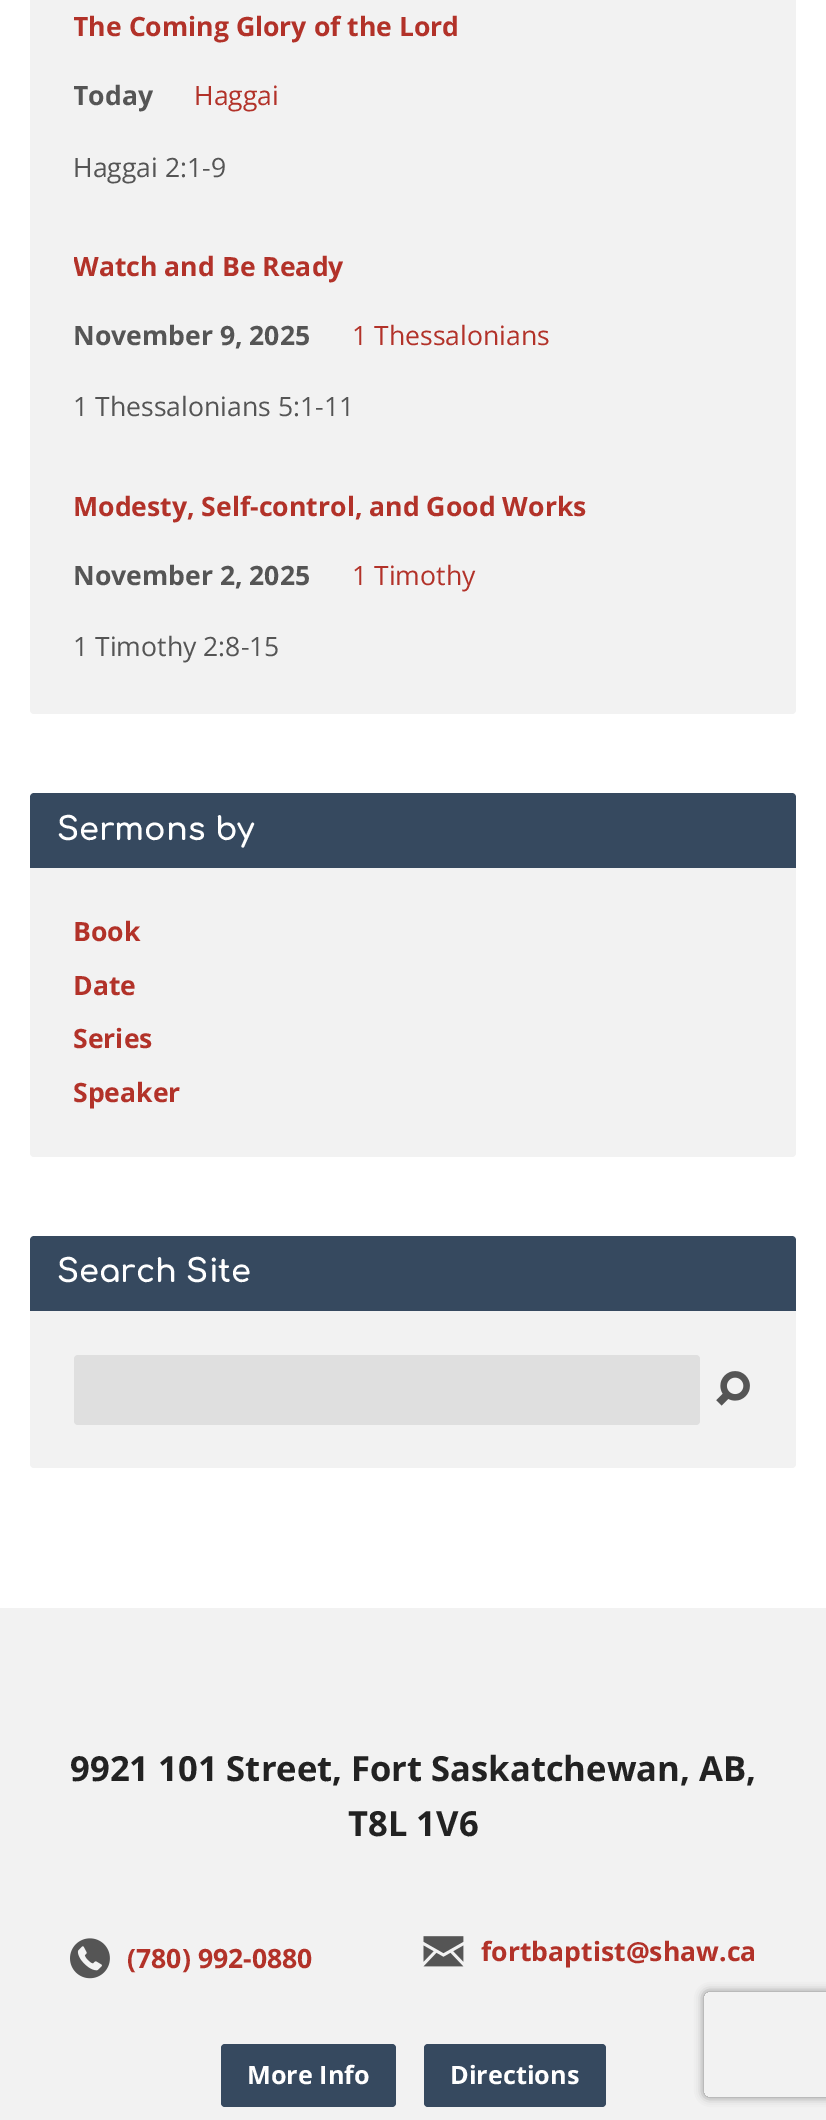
%!PS
<< /PageSize [826 2120] /PageUsesTransparency true >> setpagedevice
/rgb { dup -16 bitshift 255 div exch dup -8 bitshift 255 and 255 div exch 255 and 255 div setrgbcolor } def
/font { [ exch dup neg 0 0 3 -1 roll 0 0 ] selectfont } def
/text { moveto show } def
/alpha { dup .setfillconstantalpha .setstrokeconstantalpha } def
/roundrect { 5 dict begin { /r /h /w /y /x } { exch def } forall
  x r add y moveto x w add y 2 copy h add r arct x w add y h add x 1 index r arct
  x y h add x y r arct x y 2 copy exch w add exch r arct closepath end } def
/shadow { 12 dict begin { /a /b /q /h /w /y /x } { exch def } forall gsave /was 0 def
  9 -2 -9 { dup b mul 4 div /e exch def 1 sub .425 mul 2.718 exch exp 1 add a .99 .min exch div /now exch def
    1 1 now sub 1 was sub div sub alpha /was now def
    w h .min e 2 mul add 0 gt { x e sub y e sub w e 2 mul add h e 2 mul add
      q e add b .6 mul add w h .min 2 div e add .min 0 .max roundrect fill } if } for grestore end } def
/picture { 5 dict begin { /h /w /y /x /name } { exch def } forall
  gsave x y translate w h scale
  w h 8 [w 0 0 h 0 0] name (r) file false 3 colorimage grestore end } def
0 .pushpdf14devicefilter
0 2120 translate 1 -1 scale
4 setmiterlimit
/s1 { /OpenSans-Bold 26.6 font 16#B23229 rgb } def
/s2 { /OpenSans-Bold 26.6 font 16#555555 rgb } def
/s3 { /OpenSans-Regular 26.6 font 16#B23229 rgb } def
/s4 { /OpenSans-Regular 26.6 font 16#555555 rgb } def
/s5 { /Comfortaa-Bold 32 font 16#FFFFFF rgb } def
/s6 { /OpenSans-Bold 34.6 font 16#222222 rgb } def
/s7 { /OpenSans-Bold 25.25 font 16#FFFFFF rgb } def
16#FFFFFF rgb
0 0 826 2120 rectfill
16#F2F2F2 rgb
30 -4 766 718 4 roundrect fill
gsave
74 4 679 187 rectclip
s1
(The Coming Glory of the Lord) 73 36 text
s2
(Today) 73 105 text
grestore
s3
(Haggai) 194 105 text
s4
(Haggai 2:1-9) 73 177 text
gsave
74 243 679 188 rectclip
s1
(Watch and Be Ready) 73 276 text
grestore
s2
(November 9, 2025) 73 345 text
s3
(1 Thessalonians) 352 345 text
s4
(1 Thessalonians 5:1-11) 73 416 text
s1
(Modesty, Self-control, and Good Works) 73 516 text
s2
(November 2, 2025) 73 585 text
s3
(1 Timothy) 352 585 text
s4
(1 Timothy 2:8-15) 73 656 text
16#F2F2F2 rgb
30 793 766 364 4 roundrect fill
16#36495F rgb
34 793 moveto 792 793 lineto 794 793 796 795 796 797 curveto 796 868 lineto 30 868 lineto 30 797 lineto 30 795 32 793 34 793 curveto closepath fill
s5
(Sermons by) 57 840 text
s1
(Book) 73 941 text
(Date) 73 995 text
(Series) 73 1048 text
(Speaker) 73 1102 text
16#F2F2F2 rgb
30 1236 766 232 4 roundrect fill
16#36495F rgb
34 1236 moveto 792 1236 lineto 794 1236 796 1238 796 1240 curveto 796 1311 lineto 30 1311 lineto 30 1240 lineto 30 1238 32 1236 34 1236 curveto closepath fill
s5
(Search Site) 57 1282 text
16#DFDFDF rgb
74 1355 626 70 4 roundrect fill
(pic1.raw) 716 1371 34 35 picture
16#F2F2F2 rgb
0 1608 826 512 rectfill
s6
(9921 101 Street, Fort Saskatchewan, AB,) 70 1781 text
(T8L 1V6) 348 1836 text
(pic2.raw) 70 1938 40 41 picture
s1
(\(780\) 992-0880) 127 1968 text
(pic3.raw) 423 1936 41 31 picture
(fortbaptist@shaw.ca) 481 1961 text
16#36495F rgb
221 2044 175 63 4 roundrect fill
s7
(More Info) 247 2084 text
16#36495F rgb
424 2044 182 63 4 roundrect fill
s7
(Directions) 450 2084 text
gsave
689 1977 moveto 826 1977 lineto 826 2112 lineto 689 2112 lineto closepath 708 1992 moveto 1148 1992 lineto 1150 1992 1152 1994 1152 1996 curveto 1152 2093 lineto 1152 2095 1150 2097 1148 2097 curveto 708 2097 lineto 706 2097 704 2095 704 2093 curveto 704 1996 lineto 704 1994 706 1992 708 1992 curveto closepath eoclip newpath
16#808080 rgb
704 1992 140 105 4 4.5 1 shadow
grestore
.poppdf14devicefilter showpage
